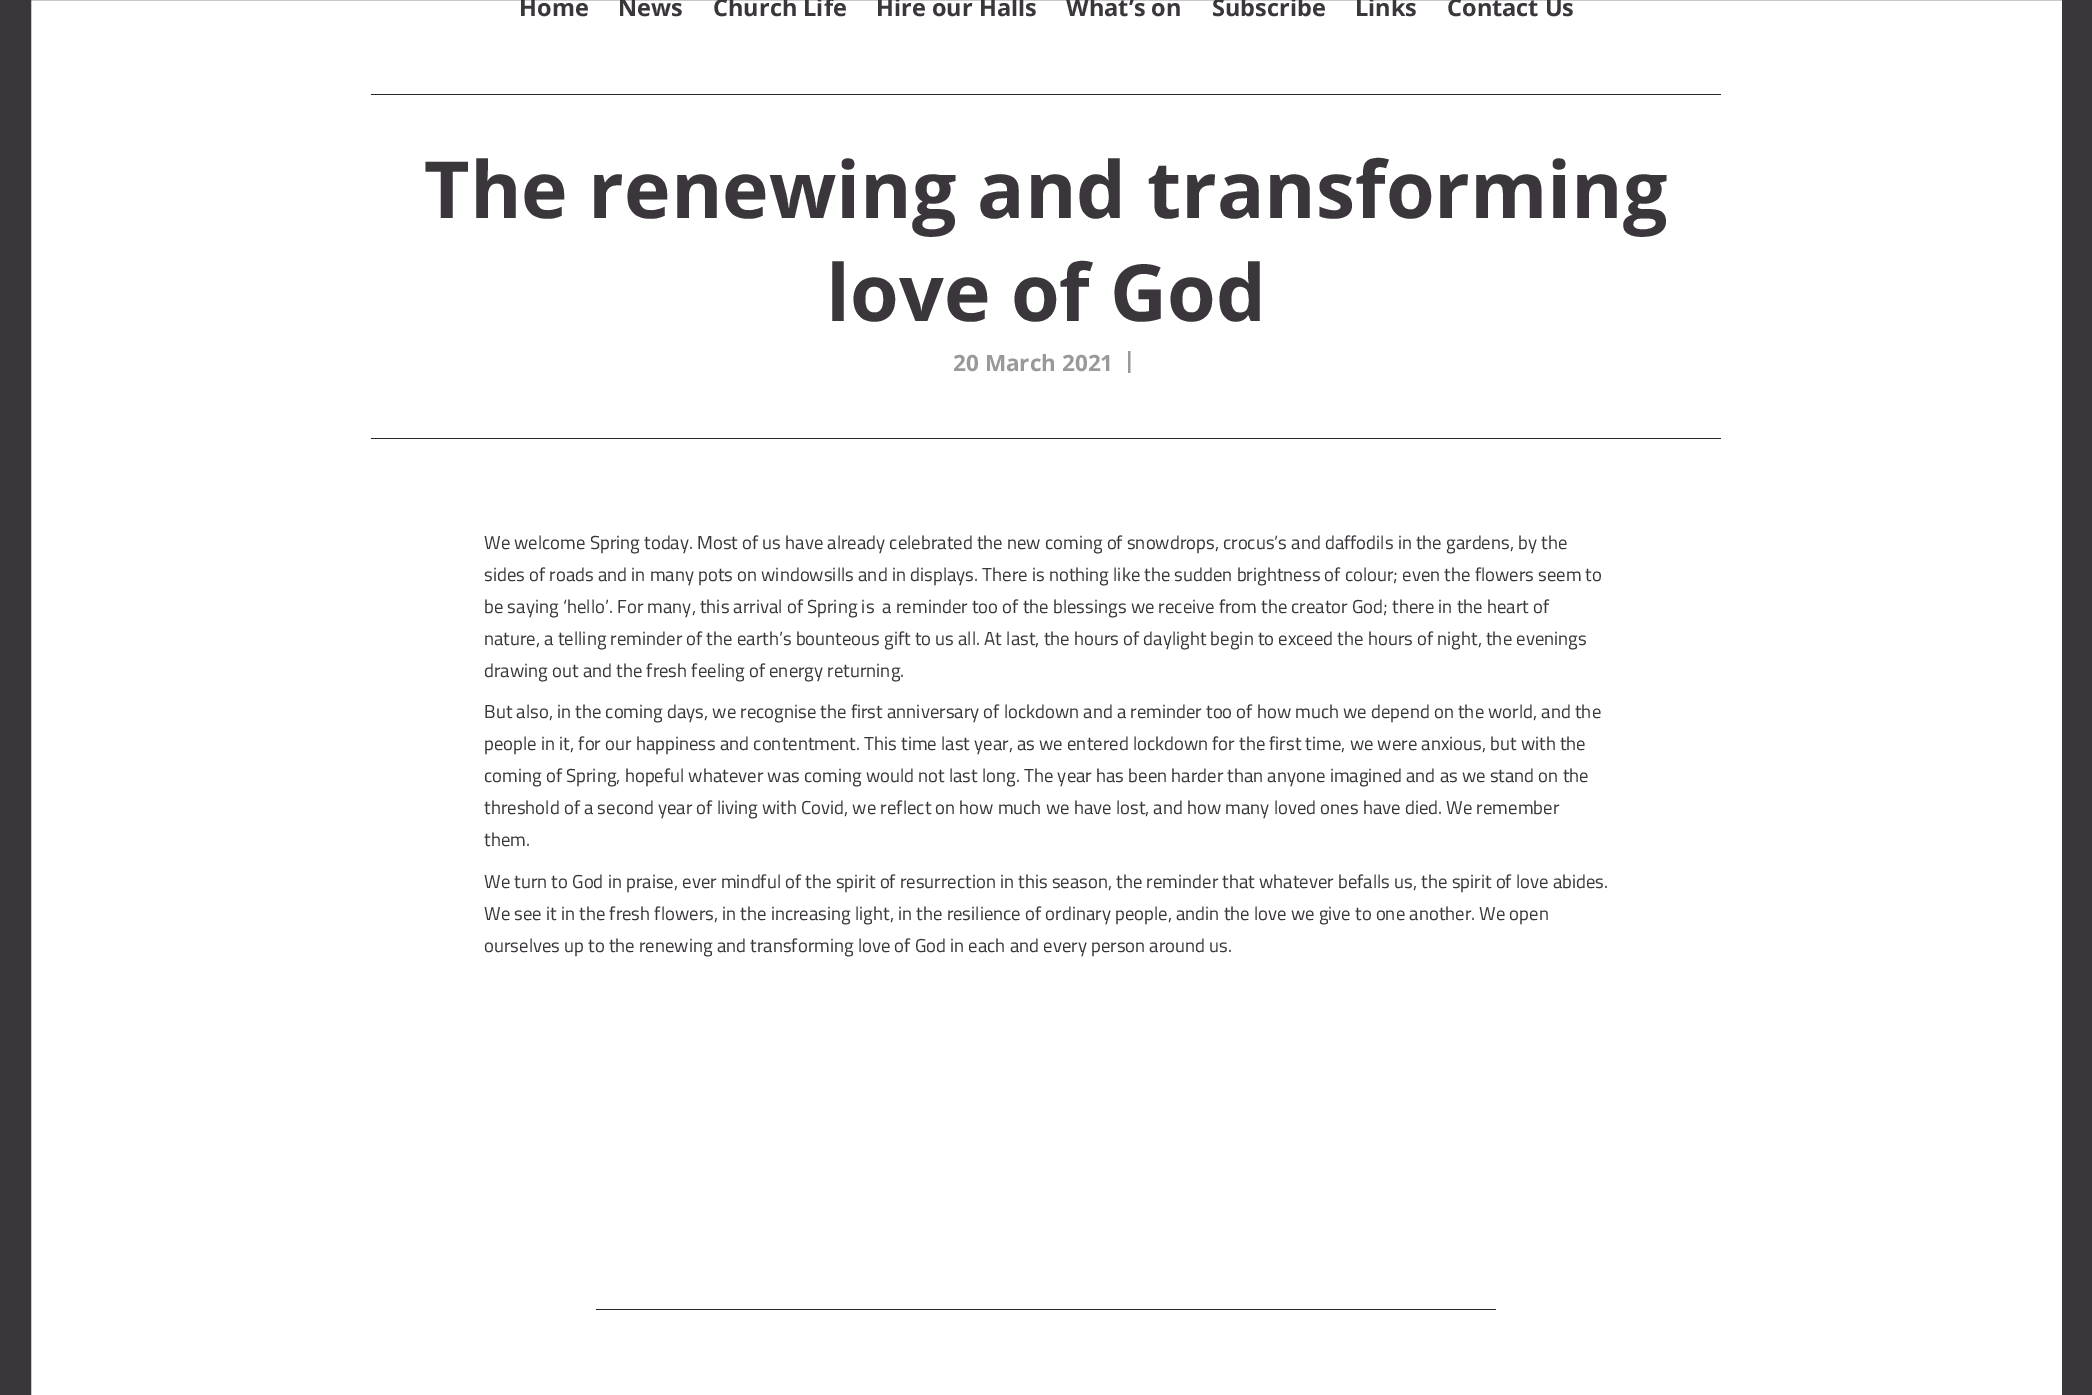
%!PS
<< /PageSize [2092 1395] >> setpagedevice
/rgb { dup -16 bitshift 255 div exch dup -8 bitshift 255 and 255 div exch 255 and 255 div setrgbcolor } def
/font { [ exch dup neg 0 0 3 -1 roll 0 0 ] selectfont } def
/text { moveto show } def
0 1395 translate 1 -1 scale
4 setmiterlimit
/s1 { /OpenSans-Bold 23.5 font 16#3A363B rgb } def
/s2 { /OpenSans-Bold 78.75 font 16#3A363B rgb } def
/s3 { /OpenSans-Bold 22.5 font 16#999999 rgb } def
/s4 { /TitilliumWeb-Regular 18.75 font 16#3A363B rgb } def
16#FFFFFF rgb
0 0 2092 1395 rectfill
16#3A363B rgb
31 setlinewidth
15.5 -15.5 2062 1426 rectstroke
16#262626 rgb
371 94 1350 1 rectfill
s1
(Home) 519 16 text
(News) 618 16 text
(Church Life) 713 16 text
(Hire our Halls) 876 16 text
(What’s on) 1066 16 text
(Subscribe) 1212 16 text
(Links) 1355 16 text
(Contact Us) 1447 16 text
s2
(The renewing and transforming) 424 218 text
(love of God) 826 321 text
s3
(20 March 2021) 953 371 text
(|) 1123 368 text
16#262626 rgb
371 438 1350 1 rectfill
s4
(We welcome Spring today. Most of us have already celebrated the new coming of snowdrops, crocus’s and daffodils in the gardens, by the) 484 549 text
(sides of roads and in many pots on windowsills and in displays. There is nothing like the sudden brightness of colour; even the flowers seem to) 484 581 text
(be saying ‘hello’. For many, this arrival of Spring is  a reminder too of the blessings we receive from the creator God; there in the heart of) 484 613 text
(nature, a telling reminder of the earth’s bounteous gift to us all. At last, the hours of daylight begin to exceed the hours of night, the evenings) 484 645 text
(drawing out and the fresh feeling of energy returning.) 484 677 text
(But also, in the coming days, we recognise the first anniversary of lockdown and a reminder too of how much we depend on the world, and the) 484 718 text
(people in it, for our happiness and contentment. This time last year, as we entered lockdown for the first time, we were anxious, but with the) 484 750 text
(coming of Spring, hopeful whatever was coming would not last long. The year has been harder than anyone imagined and as we stand on the) 484 782 text
(threshold of a second year of living with Covid, we reflect on how much we have lost, and how many loved ones have died. We remember) 484 814 text
(them.) 484 846 text
(We turn to God in praise, ever mindful of the spirit of resurrection in this season, the reminder that whatever befalls us, the spirit of love abides.) 484 888 text
(We see it in the fresh flowers, in the increasing light, in the resilience of ordinary people, andin the love we give to one another. We open) 484 920 text
(ourselves up to the renewing and transforming love of God in each and every person around us.) 484 952 text
16#262626 rgb
596 1309 900 1 rectfill
showpage
